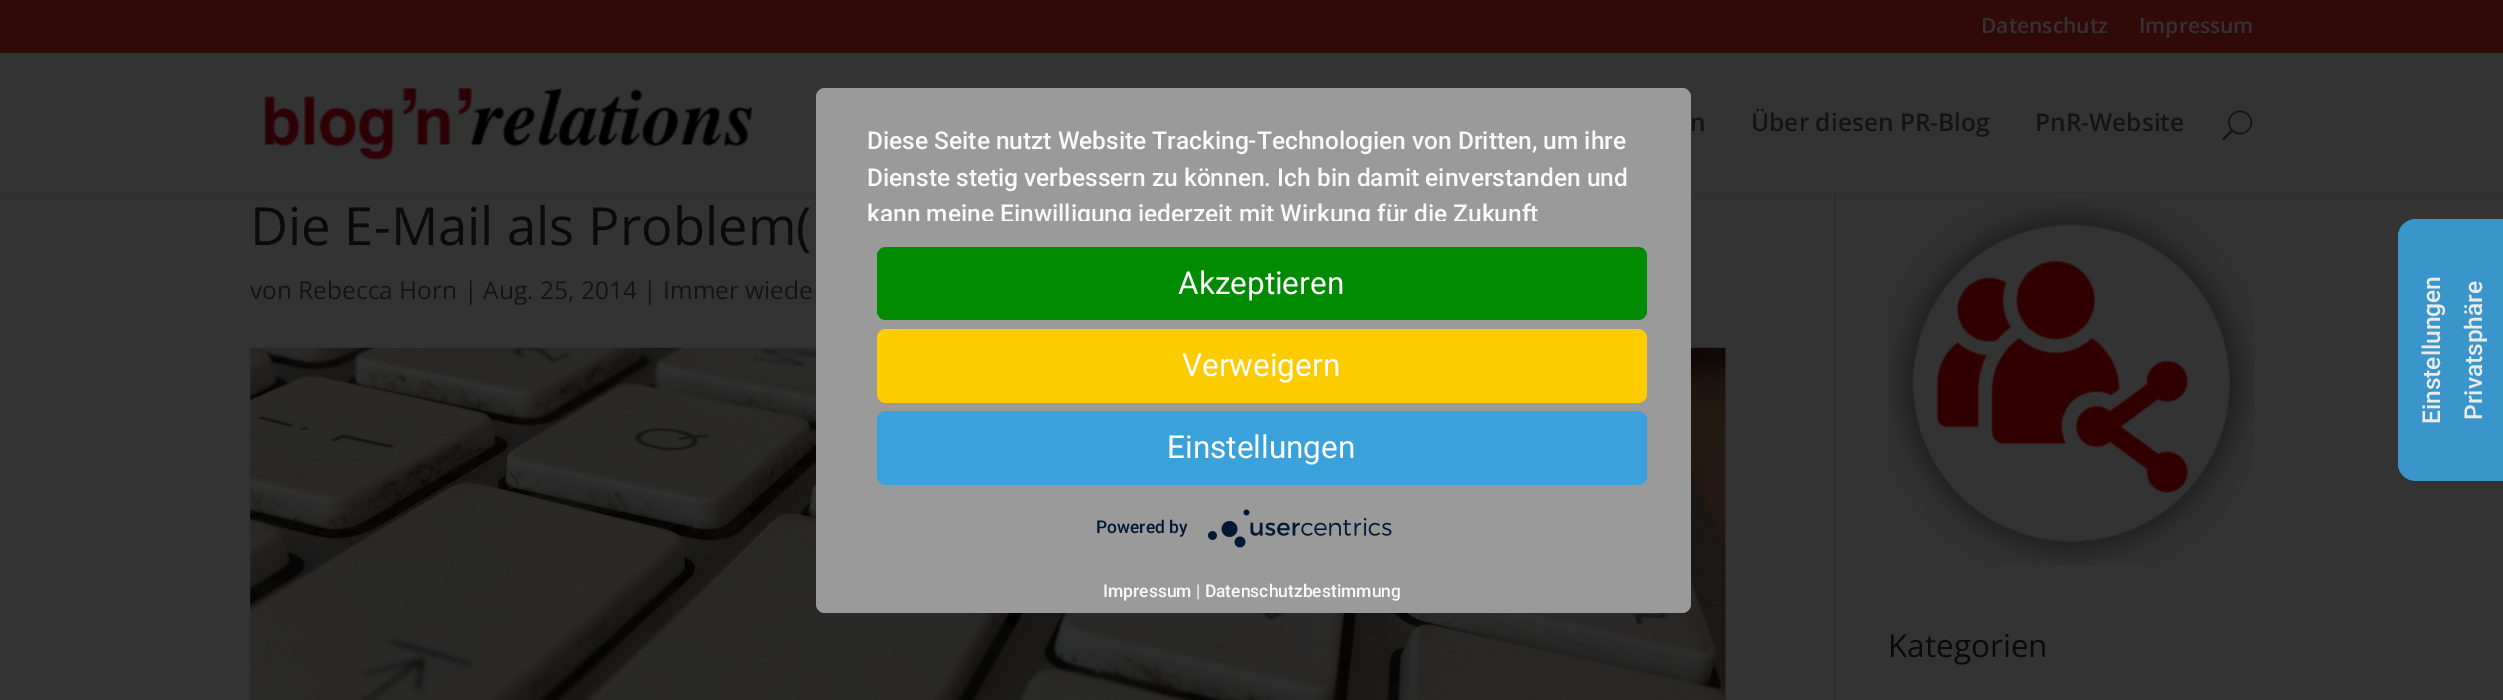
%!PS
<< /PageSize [2503 700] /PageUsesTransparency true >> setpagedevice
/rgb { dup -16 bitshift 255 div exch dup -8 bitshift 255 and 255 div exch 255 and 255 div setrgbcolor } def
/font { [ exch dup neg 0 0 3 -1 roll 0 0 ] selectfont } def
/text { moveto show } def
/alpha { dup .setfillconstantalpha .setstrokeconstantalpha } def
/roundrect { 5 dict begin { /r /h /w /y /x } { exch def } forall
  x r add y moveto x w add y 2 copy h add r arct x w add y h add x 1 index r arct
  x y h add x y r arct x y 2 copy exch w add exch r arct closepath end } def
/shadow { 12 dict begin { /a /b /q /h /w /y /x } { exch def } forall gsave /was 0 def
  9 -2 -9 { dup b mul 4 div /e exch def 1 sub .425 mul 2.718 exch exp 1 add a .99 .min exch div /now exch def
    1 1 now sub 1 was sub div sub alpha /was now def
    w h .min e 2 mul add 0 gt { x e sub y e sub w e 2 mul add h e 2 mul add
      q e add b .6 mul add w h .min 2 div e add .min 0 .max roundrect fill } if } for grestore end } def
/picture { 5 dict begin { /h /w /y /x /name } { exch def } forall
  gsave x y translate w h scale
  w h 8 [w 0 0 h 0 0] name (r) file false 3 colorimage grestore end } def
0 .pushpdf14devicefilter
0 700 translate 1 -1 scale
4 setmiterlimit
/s1 { /OpenSans-SemiBold 21 font 16#333333 rgb } def
/s2 { /OpenSans-SemiBold 24.5 font 16#141414 rgb } def
/s3 { /OpenSans-Regular 52.5 font 16#0A0A0A rgb } def
/s4 { /OpenSans-Regular 24.5 font 16#141414 rgb } def
/s5 { /OpenSans-Regular 31.5 font 16#0A0A0A rgb } def
/s6 { /Roboto-Medium 24.5 font 16#F9F9F9 rgb } def
/s7 { /Roboto-Regular 31.5 font 16#FFFFFF rgb } def
/s8 { /Roboto-Medium 17.5 font 16#021836 rgb } def
/s9 { /Roboto-Medium 17.5 font 16#F9F9F9 rgb } def
16#333333 rgb
0 0 2503 700 rectfill
16#2E2E2E rgb
0 193 2503 1 rectfill
16#300A07 rgb
0 0 2503 53 rectfill
s1
(Datenschutz) 1981 33 text
(Impressum) 2139 33 text
(pic1.raw) 263 88 491 72 picture
s2
(n) 1690 131 text
(Über diesen PR-Blog) 1751 131 text
(PnR-Website) 2035 131 text
(pic2.raw) 2222 110 31 31 picture
16#2D2D2D rgb
1834 194 2 506 rectfill
16#292929 rgb
1834 193 2 1 rectfill
s3
(Die E-Mail als Problem\() 250 245 text
s4
(von Rebecca Horn | Aug. 25, 2014 | Immer wiede) 250 299 text
(pic3.raw) 250 347 1476 353 picture
(pic4.raw) 1888 199 366 366 picture
s5
(Kategorien) 1888 657 text
gsave
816 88 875 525 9 roundrect clip newpath
16#000000 rgb
816 98 875 560 0 31.5 0.3 shadow
grestore
16#9A9A9A rgb
816 88 875 525 9 roundrect fill
s6
(Diese Seite nutzt Website Tracking-Technologien von Dritten, um ihre) 867 149 text
(Dienste stetig verbessern zu können. Ich bin damit einverstanden und) 867 186 text
gsave
868 123 770 98 rectclip
(kann meine Einwilligung jederzeit mit Wirkung für die Zukunft) 867 222 text
grestore
16#008B02 rgb
877 247 770 73 9 roundrect fill
s7
(Akzeptieren) 1178 294 text
16#FCCB00 rgb
877 329 770 74 9 roundrect fill
s7
(Verweigern) 1182 376 text
16#3BA1DB rgb
877 411 770 74 9 roundrect fill
s7
(Einstellungen) 1167 458 text
s8
(Powered by) 1096 533 text
(pic5.raw) 1208 509 184 39 picture
s9
(Impressum | Datenschutzbestimmung) 1103 597 text
16#3A96CA rgb
2398 464 moveto 2398 236 lineto 2398 227 2406 219 2416 219 curveto 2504 219 lineto 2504 481 lineto 2416 481 lineto 2406 481 2398 473 2398 464 curveto closepath fill
/Roboto-Medium 24.5 font
16#EBEBEB rgb
gsave 2440 424 translate -90 rotate 0 0 moveto (Einstellungen) show grestore
gsave 2482 420 translate -90 rotate 0 0 moveto (Privatsphäre) show grestore
.poppdf14devicefilter showpage
